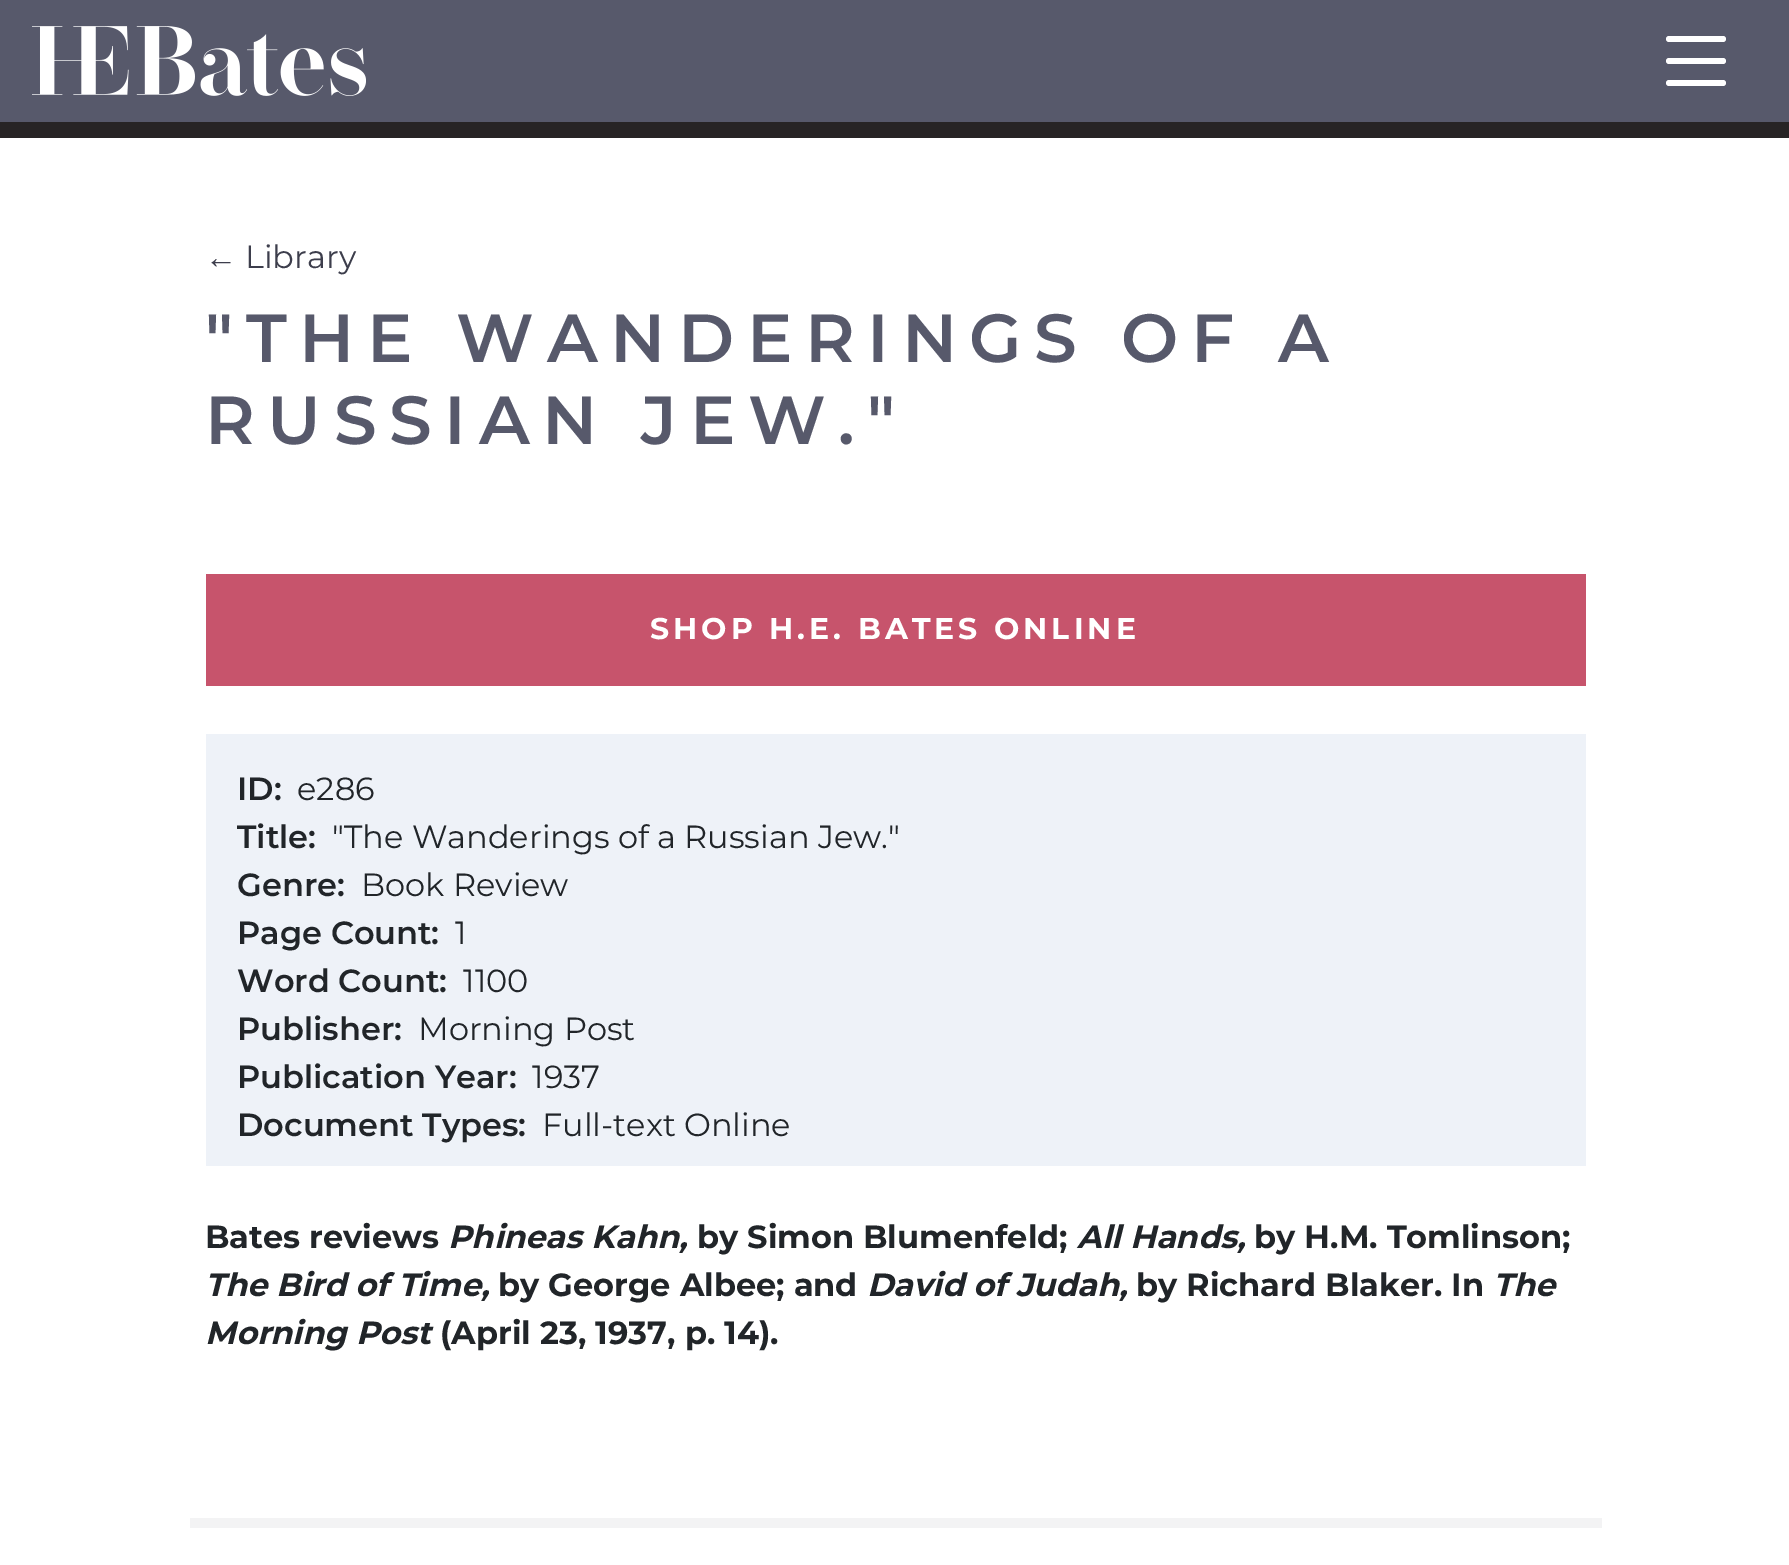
%!PS
<< /PageSize [1789 1565] >> setpagedevice
/rgb { dup -16 bitshift 255 div exch dup -8 bitshift 255 and 255 div exch 255 and 255 div setrgbcolor } def
/font { [ exch dup neg 0 0 3 -1 roll 0 0 ] selectfont } def
/text { moveto show } def
/roundrect { 5 dict begin { /r /h /w /y /x } { exch def } forall
  x r add y moveto x w add y 2 copy h add r arct x w add y h add x 1 index r arct
  x y h add x y r arct x y 2 copy exch w add exch r arct closepath end } def
/picture { 5 dict begin { /h /w /y /x /name } { exch def } forall
  gsave x y translate w h scale
  w h 8 [w 0 0 h 0 0] name (r) file false 3 colorimage grestore end } def
0 1565 translate 1 -1 scale
4 setmiterlimit
/s1 { /LiberationSans-Regular 32 font 16#3D3E4C rgb } def
/s2 { /Montserrat-Regular 32 font 16#3D3E4C rgb } def
/s3 { /Montserrat-SemiBold 32 font 16#212529 rgb } def
/s4 { /Montserrat-Regular 32 font 16#212529 rgb } def
/s5 { /Montserrat-Bold 32 font 16#212529 rgb } def
/s6 { /Montserrat-BoldItalic 32 font 16#212529 rgb } def
16#FFFFFF rgb
0 0 1789 1565 rectfill
16#57596B rgb
0 0 1789 122 rectfill
16#272425 rgb
0 122 1789 16 rectfill
(pic1.raw) 32 26 334 70 picture
16#FFFFFF rgb
1666 36 60 6 3 roundrect fill
1666 58 60 6 3 roundrect fill
1666 80 60 6 3 roundrect fill
s1
(←) 205 268 text
s2
(Library) 245 268 text
/Montserrat-SemiBold 68 font
16#57596B rgb
205 362 moveto 12.6 0 ("THE WANDERINGS OF A) ashow
205 444 moveto 12.6 0 (RUSSIAN JEW.") ashow
16#C7546C rgb
206 574 1380 112 rectfill
/Montserrat-Bold 30 font
16#FFFFFF rgb
650 639 moveto 4 0 (SHOP H.E. BATES ONLINE) ashow
16#EEF2F8 rgb
206 734 1380 432 rectfill
s3
(ID:) 237 800 text
s4
(e286) 297 800 text
s3
(Title:) 237 848 text
s4
("The Wanderings of a Russian Jew.") 332 848 text
s3
(Genre:) 237 896 text
s4
(Book Review) 361 896 text
s3
(Page Count:) 237 944 text
s4
(1) 455 944 text
s3
(Word Count:) 237 992 text
s4
(1100) 463 992 text
s3
(Publisher:) 237 1040 text
s4
(Morning Post) 418 1040 text
s3
(Publication Year:) 237 1088 text
s4
(1937) 532 1088 text
s3
(Document Types:) 237 1136 text
s4
(Full-text Online) 542 1136 text
s5
(Bates reviews) 205 1248 text
s6
(Phineas Kahn,) 448 1248 text
s5
(by Simon Blumenfeld;) 697 1248 text
s6
(All Hands,) 1077 1248 text
s5
(by H.M. Tomlinson;) 1254 1248 text
s6
(The Bird of Time,) 205 1296 text
s5
(by George Albee; and) 498 1296 text
s6
(David of Judah,) 867 1296 text
s5
(by Richard Blaker. In) 1136 1296 text
s6
(The) 1493 1296 text
(Morning Post) 205 1344 text
s5
(\(April 23, 1937, p. 14\).) 440 1344 text
16#F3F3F4 rgb
190 1518 1412 10 rectfill
showpage
